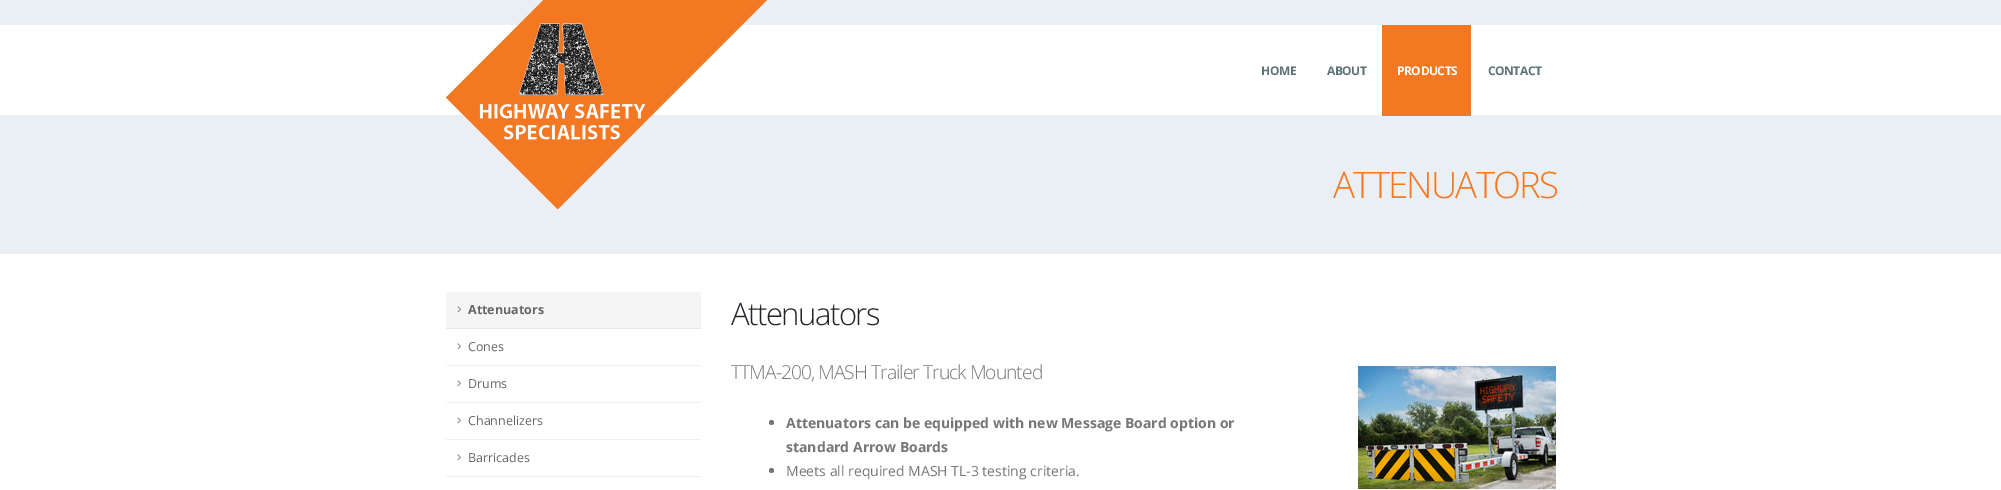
%!PS
<< /PageSize [2001 490] >> setpagedevice
/rgb { dup -16 bitshift 255 div exch dup -8 bitshift 255 and 255 div exch 255 and 255 div setrgbcolor } def
/font { [ exch dup neg 0 0 3 -1 roll 0 0 ] selectfont } def
/text { moveto show } def
/circle { newpath 0 360 arc closepath } def
/picture { 5 dict begin { /h /w /y /x /name } { exch def } forall
  gsave x y translate w h scale
  w h 8 [w 0 0 h 0 0] name (r) file false 3 colorimage grestore end } def
0 490 translate 1 -1 scale
4 setmiterlimit
/s1 { /OpenSans-Bold 12.5 font 16#666666 rgb } def
/s2 { /OpenSans-Regular 12.5 font 16#666666 rgb } def
/s3 { /OpenSans-Bold 14 font 16#777777 rgb } def
/s4 { /OpenSans-Regular 14 font 16#777777 rgb } def
16#FFFFFF rgb
0 0 2001 490 rectfill
16#EAEFF3 rgb
0 0 2001 254 rectfill
16#FFFFFF rgb
0 25 2001 90 rectfill
(pic1.raw) 446 0 321 209 picture
/OpenSans-Bold 12 font
16#5E7279 rgb
1261 75 moveto -0.5 0 (HOME) ashow
1327 75 moveto -0.5 0 (ABOUT) ashow
16#F47821 rgb
1382 25 89 91 rectfill
16#FFFFFF rgb
1397 75 moveto -0.5 0 (PRODUCTS) ashow
16#5E7279 rgb
1488 75 moveto -0.5 0 (CONTACT) ashow
/OpenSans-Light 36.5 font
16#F47821 rgb
1333 198 moveto -1.75 0 (ATTENUATORS) ashow
16#F5F5F5 rgb
446 292 255 36 rectfill
16#E6E6E6 rgb
446 328 255 1 rectfill
(pic2.raw) 457 306 4 7 picture
s1
(Attenuators) 468 314 text
16#F0F0F0 rgb
446 365 255 1 rectfill
(pic3.raw) 457 343 4 7 picture
s2
(Cones) 468 351 text
16#F0F0F0 rgb
446 402 255 1 rectfill
(pic3.raw) 457 380 4 7 picture
s2
(Drums) 468 388 text
16#F0F0F0 rgb
446 439 255 1 rectfill
(pic3.raw) 457 417 4 7 picture
s2
(Channelizers) 468 425 text
16#F0F0F0 rgb
446 476 255 1 rectfill
(pic3.raw) 457 454 4 7 picture
s2
(Barricades) 468 462 text
/OpenSans-Light 31 font
16#212529 rgb
731 325 moveto -1.5 0 (Attenuators) ashow
/OpenSans-Light 19.25 font
16#777777 rgb
731 379 moveto -0.95 0 (TTMA-200, MASH Trailer Truck Mounted) ashow
(pic4.raw) 1358 366 198 124 picture
771.5 422.5 2.5 circle fill
s3
(Attenuators can be equipped with new Message Board option or) 786 428 text
(standard Arrow Boards) 786 452 text
771.5 470.5 2.5 circle fill
s4
(Meets all required MASH TL-3 testing criteria.) 786 476 text
showpage
